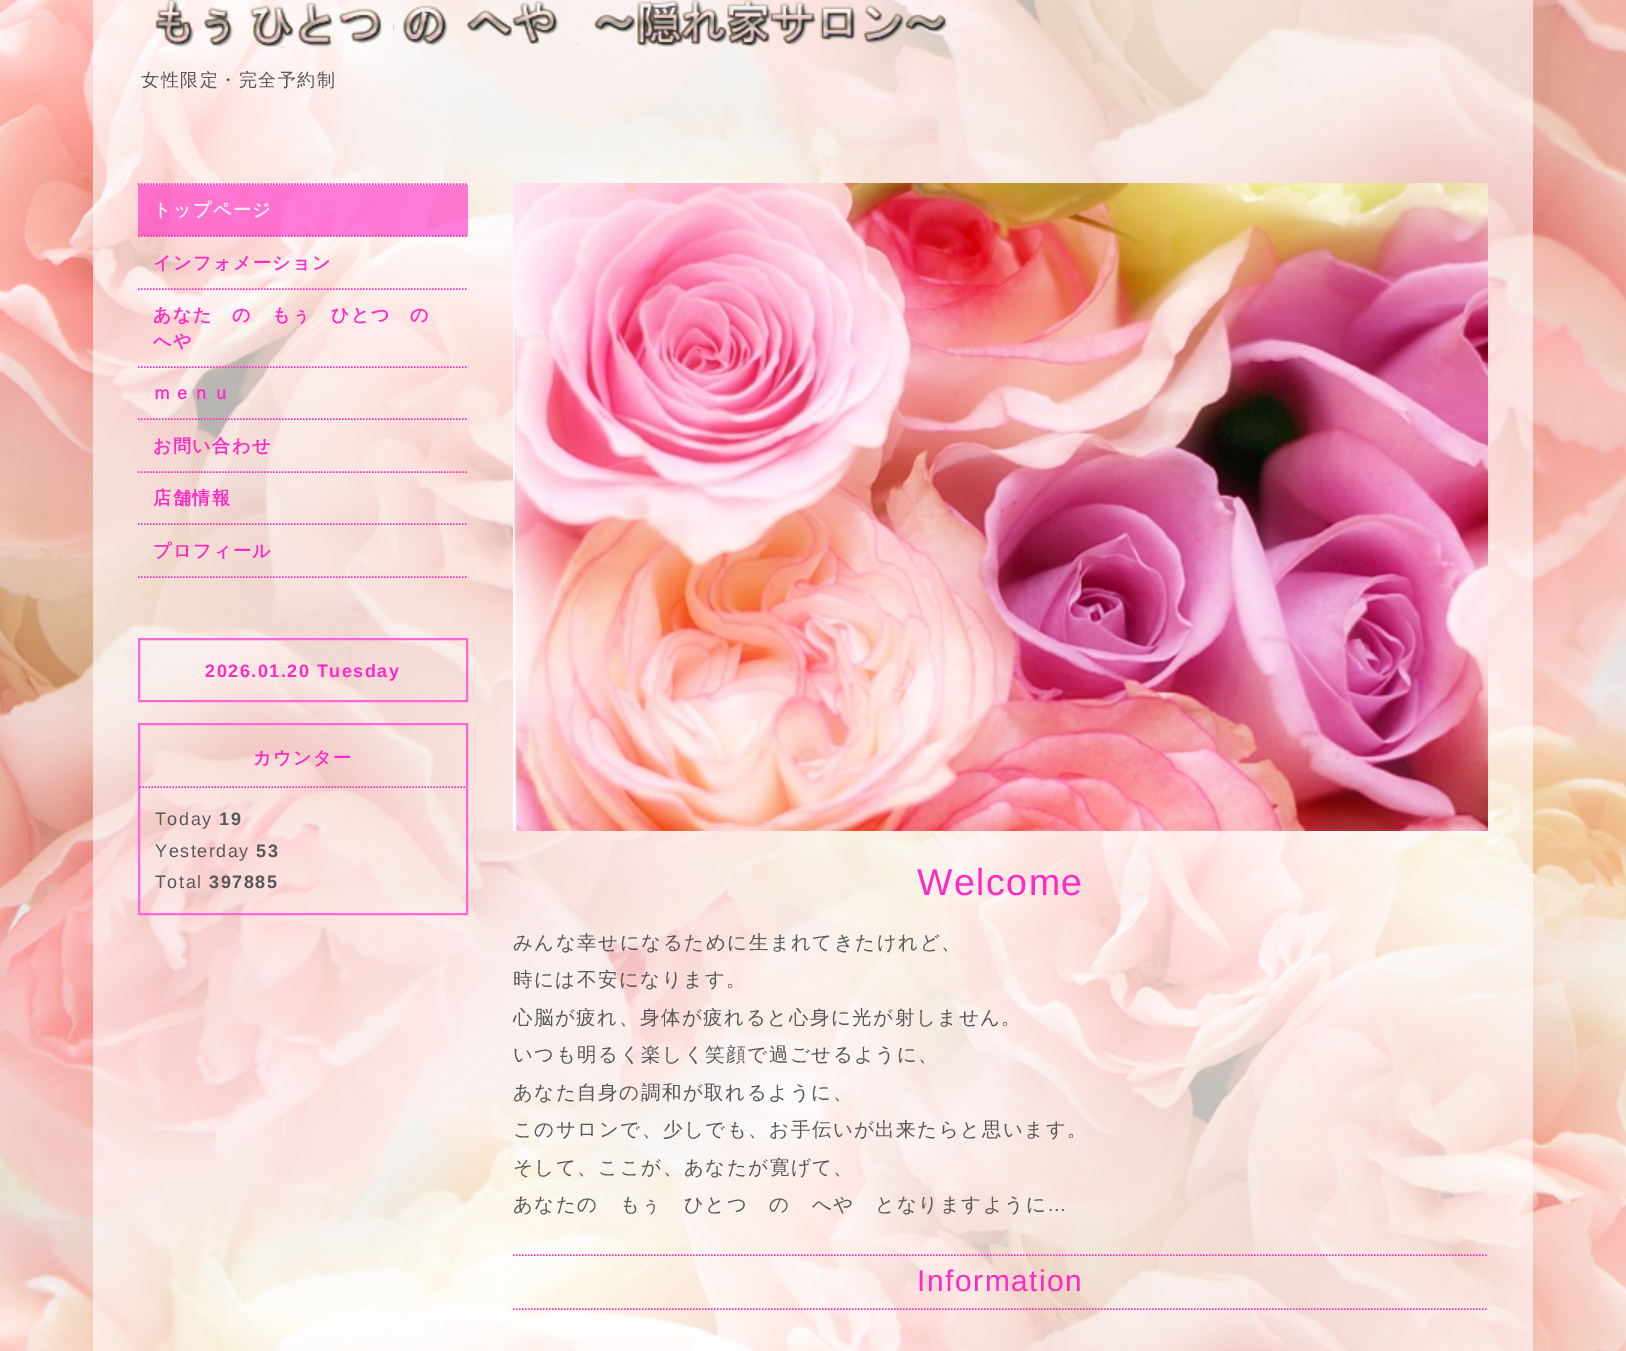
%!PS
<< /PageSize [1626 1351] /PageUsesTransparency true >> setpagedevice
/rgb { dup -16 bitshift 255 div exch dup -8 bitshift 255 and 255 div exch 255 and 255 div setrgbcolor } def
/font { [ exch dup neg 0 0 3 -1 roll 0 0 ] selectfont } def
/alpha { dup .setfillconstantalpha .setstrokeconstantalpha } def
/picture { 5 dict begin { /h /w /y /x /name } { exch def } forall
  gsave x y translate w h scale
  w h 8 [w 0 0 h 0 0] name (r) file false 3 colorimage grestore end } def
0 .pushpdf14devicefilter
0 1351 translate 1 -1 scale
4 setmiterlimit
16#FFFFFF rgb
0 0 1626 1351 rectfill
(pic1.raw) 0 0 1626 1351 picture
0.6 alpha
93 0 1440 1351 rectfill
1 alpha
(pic2.raw) 155 0 792 49 picture
/WenQuanYiZenHei-Medium 18 font
16#575757 rgb
141 86 moveto 1.5 0 (女性限定・完全予約制) ashow
16#FF2AC5 rgb
1.5 setlinewidth
[1.5 1.5] 0 setdash
138 184 moveto 468 184 lineto stroke
138 236 moveto 468 236 lineto stroke
0.6 alpha
138 185 330 51 rectfill
/WenQuanYiZenHei-Bold 18 font
1 alpha
16#EEEEEE rgb
153 216 moveto 1.5 0 (トップページ) ashow
16#FF2AC5 rgb
138 289 moveto 468 289 lineto stroke
153 269 moveto 1.5 0 (インフォメーション) ashow
138 367 moveto 468 367 lineto stroke
153 321 moveto 1.5 0 (あなた　の　もぅ　ひとつ　の) ashow
153 347 moveto 1.5 0 (へや) ashow
138 419 moveto 468 419 lineto stroke
153 399 moveto 1.5 0 (ｍｅｎｕ) ashow
138 472 moveto 468 472 lineto stroke
153 452 moveto 1.5 0 (お問い合わせ) ashow
138 524 moveto 468 524 lineto stroke
153 504 moveto 1.5 0 (店舗情報) ashow
138 577 moveto 468 577 lineto stroke
153 557 moveto 1.5 0 (プロフィール) ashow
16#FF67D6 rgb
2 setlinewidth
[] 0 setdash
139 639 328 62 rectstroke
/LiberationSans-Bold 18 font
16#FF2AC5 rgb
205 677 moveto 1.5 0 (2026.01.20 Tuesday) ashow
16#FF67D6 rgb
139 724 328 190 rectstroke
16#FF2AC5 rgb
1.5 setlinewidth
[1.5 1.5] 0 setdash
139.5 787 moveto 466.5 787 lineto stroke
/WenQuanYiZenHei-Bold 18 font
253 764 moveto 1.5 0 (カウンター) ashow
/LiberationSans-Regular 18 font
16#575757 rgb
155 825 moveto 1.5 0 (Today) ashow
/LiberationSans-Bold 18 font
219 825 moveto 1.5 0 (19) ashow
/LiberationSans-Regular 18 font
155 857 moveto 1.5 0 (Yesterday) ashow
/LiberationSans-Bold 18 font
256 857 moveto 1.5 0 (53) ashow
/LiberationSans-Regular 18 font
155 888 moveto 1.5 0 (Total) ashow
/LiberationSans-Bold 18 font
209 888 moveto 1.5 0 (397885) ashow
(pic3.raw) 513 183 975 648 picture
/LiberationSans-Regular 37.5 font
16#FF2AC5 rgb
917 895 moveto 1.5 0 (Welcome) ashow
/WenQuanYiZenHei-Medium 19.5 font
16#575757 rgb
513 949 moveto 1.5 0 (みんな幸せになるために生まれてきたけれど、) ashow
513 986 moveto 1.5 0 (時には不安になります。) ashow
513 1024 moveto 1.5 0 (心脳が疲れ、身体が疲れると心身に光が射しません。) ashow
513 1061 moveto 1.5 0 (いつも明るく楽しく笑顔で過ごせるように、) ashow
513 1099 moveto 1.5 0 (あなた自身の調和が取れるように、) ashow
513 1136 moveto 1.5 0 (このサロンで、少しでも、お手伝いが出来たらと思います。) ashow
513 1174 moveto 1.5 0 (そして、ここが、あなたが寛げて、) ashow
513 1211 moveto 1.5 0 (あなたの　もぅ　ひとつ　の　へや　となりますように) ashow
/LiberationSans-Regular 19.5 font
1047 1211 moveto 1.5 0 (…) ashow
16#FF2AC5 rgb
513 1255 moveto 1488 1255 lineto stroke
513 1309 moveto 1488 1309 lineto stroke
/LiberationSans-Regular 30 font
917 1291 moveto 1.5 0 (Information) ashow
.poppdf14devicefilter showpage
